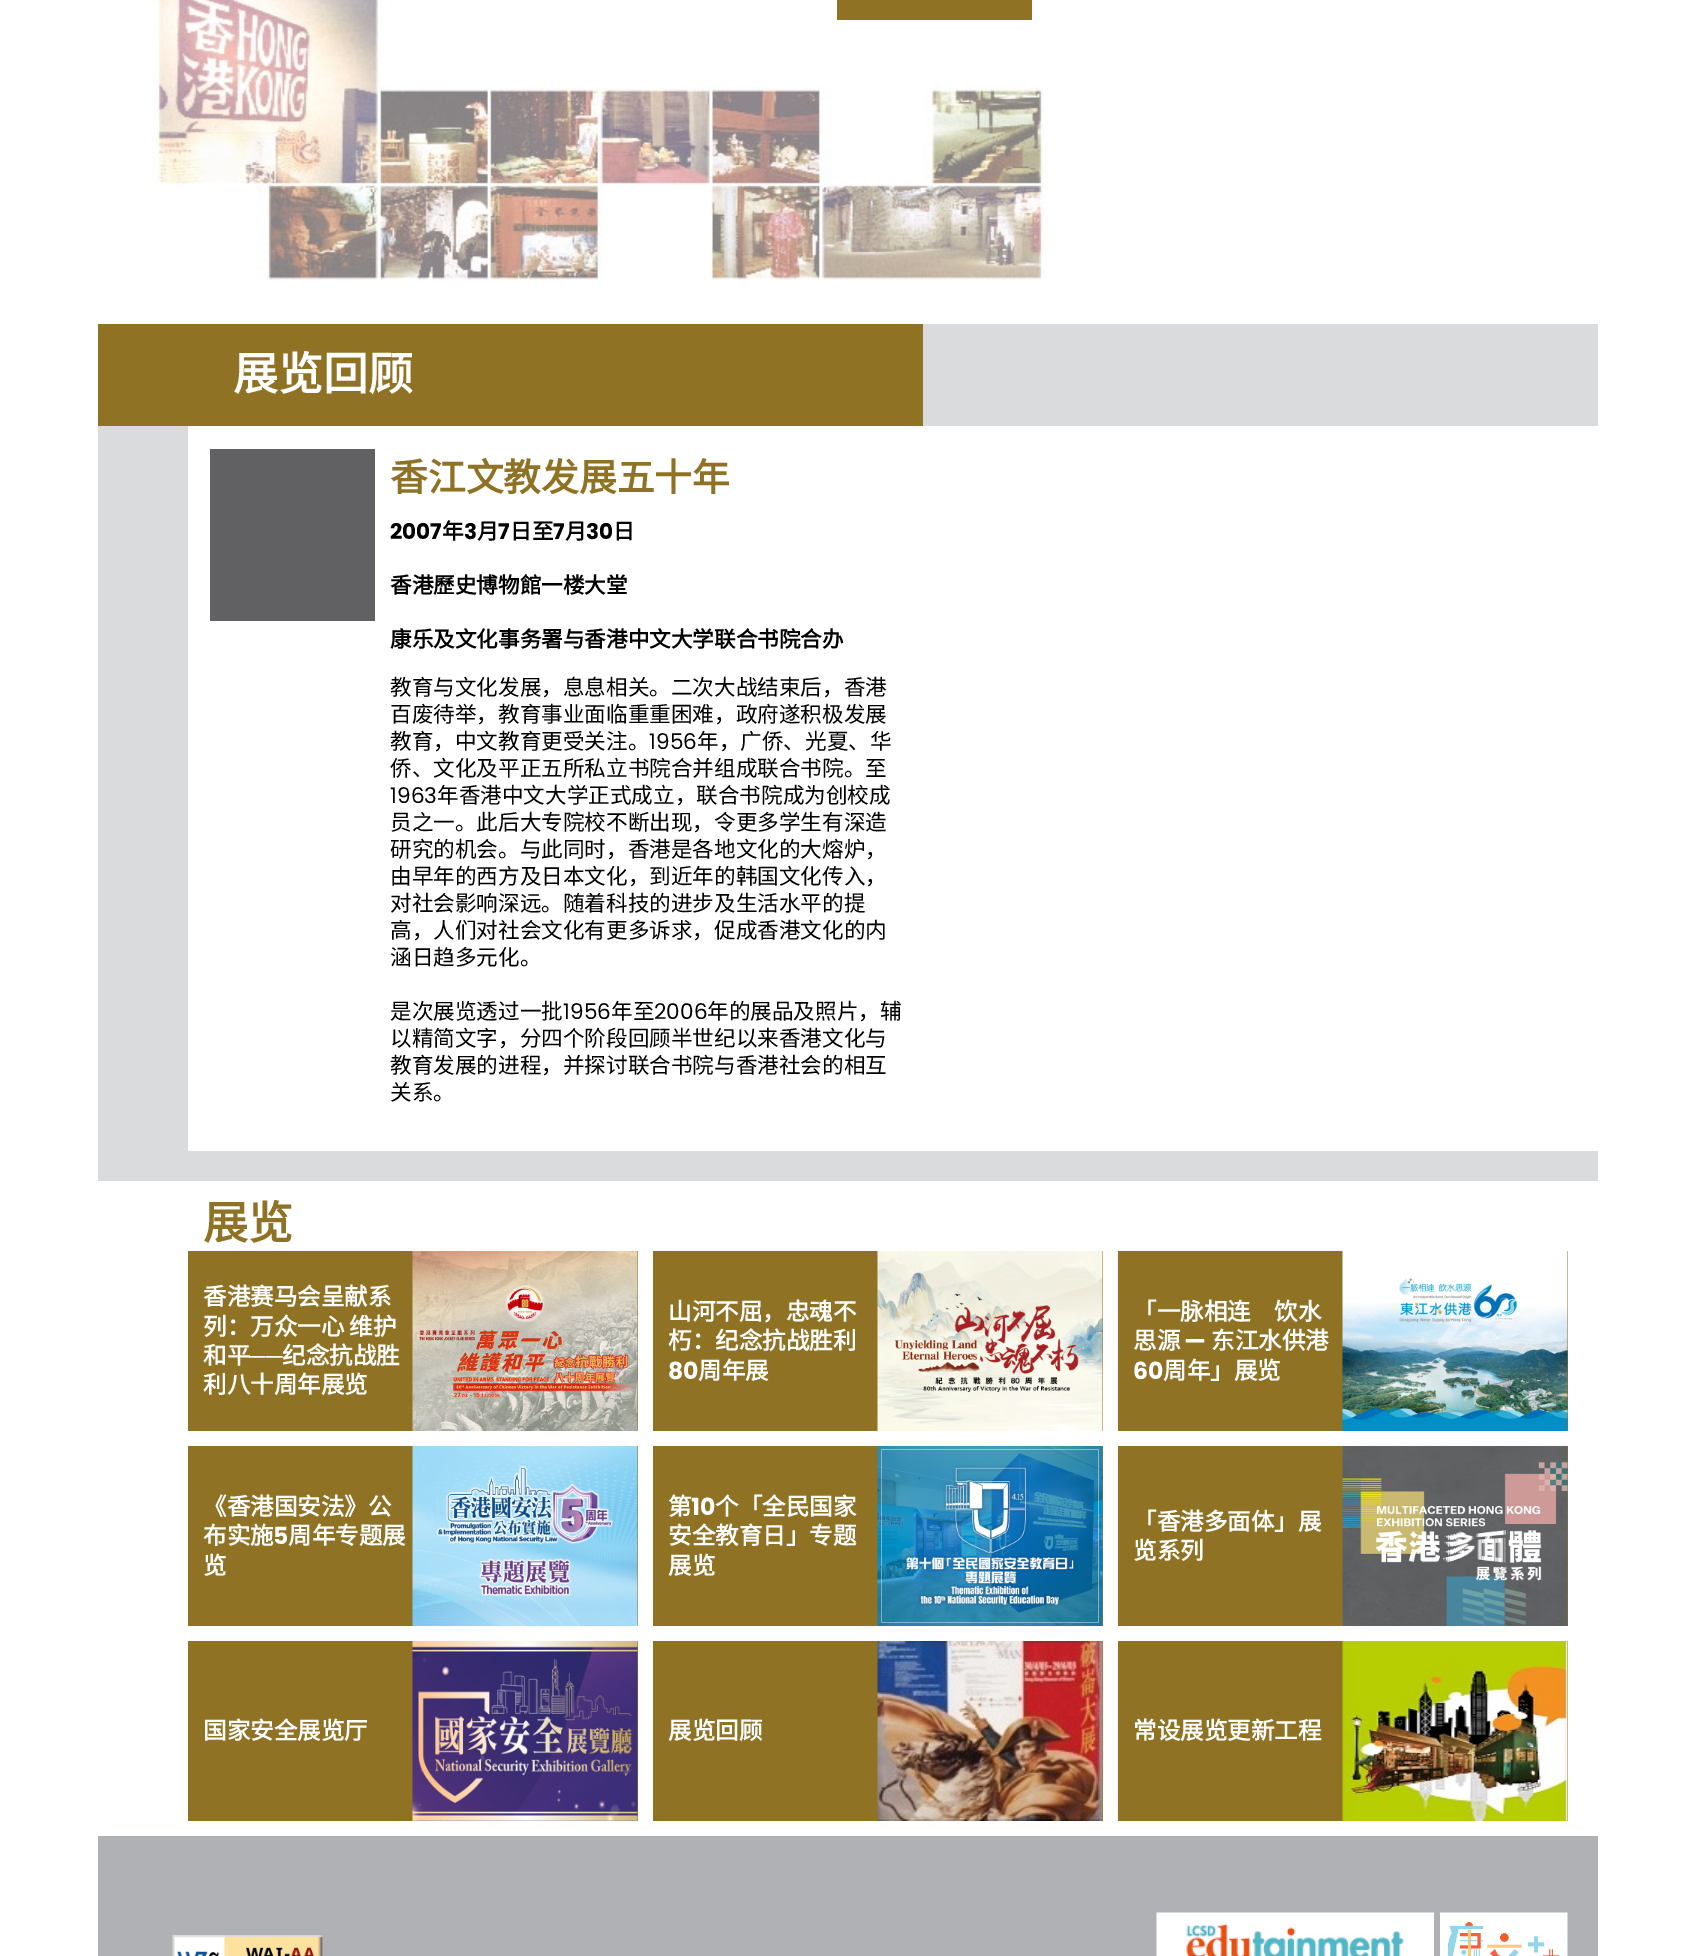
%!PS
<< /PageSize [1695 1956] >> setpagedevice
/rgb { dup -16 bitshift 255 div exch dup -8 bitshift 255 and 255 div exch 255 and 255 div setrgbcolor } def
/font { [ exch dup neg 0 0 3 -1 roll 0 0 ] selectfont } def
/text { moveto show } def
/picture { 5 dict begin { /h /w /y /x /name } { exch def } forall
  gsave x y translate w h scale
  w h 8 [w 0 0 h 0 0] name (r) file false 3 colorimage grestore end } def
0 1956 translate 1 -1 scale
4 setmiterlimit
/s1 { /NotoSansCJKSC-Bold 45 font 16#FFFFFF rgb } def
/s2 { /NotoSansCJKSC-Bold 37.75 font 16#8F7224 rgb } def
/s3 { /Poppins-Bold 21.6 font 16#000000 rgb } def
/s4 { /NotoSansCJKSC-Bold 21.6 font 16#000000 rgb } def
/s5 { /NotoSansCJKSC-Regular 21.6 font 16#000000 rgb } def
/s6 { /Poppins-Regular 21.6 font 16#000000 rgb } def
/s7 { /NotoSansCJKSC-Bold 45 font 16#8F7224 rgb } def
/s8 { /NotoSansCJKSC-Bold 23.5 font 16#FFFFFF rgb } def
/s9 { /LiberationSans-Bold 23.5 font 16#FFFFFF rgb } def
/s10 { /Poppins-Bold 23.5 font 16#FFFFFF rgb } def
16#FFFFFF rgb
0 0 1695 1956 rectfill
(pic1.raw) 151 0 893 280 picture
16#8F7224 rgb
837 0 195 20 rectfill
98 324 825 102 rectfill
s1
(展览回顾) 233 390 text
16#DADBDD rgb
923 324 675 102 rectfill
98 426 90 725 rectfill
16#616163 rgb
210 449 165 172 rectfill
s2
(香江文教发展五十年) 390 491 text
s3
(2007) 390 539 text
s4
(年) 442 539 text
s3
(3) 464 539 text
s4
(月) 477 539 text
s3
(7) 498 539 text
s4
(日至) 510 539 text
s3
(7) 553 539 text
s4
(月) 565 539 text
s3
(30) 586 539 text
s4
(日) 613 539 text
(香港歷史博物館一楼大堂) 390 593 text
(康乐及文化事务署与香港中文大学联合书院合办) 390 647 text
s5
(教育与文化发展，息息相关。二次大战结束后，香港) 390 695 text
(百废待举，教育事业面临重重困难，政府遂积极发展) 390 722 text
(教育，中文教育更受关注。) 390 749 text
s6
(1956) 649 749 text
s5
(年，广侨、光夏、华) 697 749 text
(侨、文化及平正五所私立书院合并组成联合书院。至) 390 776 text
s6
(1963) 390 803 text
s5
(年香港中文大学正式成立，联合书院成为创校成) 437 803 text
(员之一。此后大专院校不断出现，令更多学生有深造) 390 830 text
(研究的机会。与此同时，香港是各地文化的大熔炉，) 390 857 text
(由早年的西方及日本文化，到近年的韩国文化传入，) 390 884 text
(对社会影响深远。随着科技的进步及生活水平的提) 390 911 text
(高，人们对社会文化有更多诉求，促成香港文化的内) 390 938 text
(涵日趋多元化。) 390 965 text
(是次展览透过一批) 390 1019 text
s6
(1956) 563 1019 text
s5
(年至) 611 1019 text
s6
(2006) 654 1019 text
s5
(年的展品及照片，辅) 707 1019 text
(以精简文字，分四个阶段回顾半世纪以来香港文化与) 390 1046 text
(教育发展的进程，并探讨联合书院与香港社会的相互) 390 1073 text
(关系。) 390 1100 text
16#DADBDD rgb
98 1151 1500 30 rectfill
s7
(展览) 203 1239 text
188 1251 450 180 rectfill
s8
(香港赛马会呈献系) 203 1305 text
(列：万众一心 维护) 203 1335 text
(和平) 203 1364 text
s9
(──) 249 1364 text
s8
(纪念抗战胜) 282 1364 text
(利八十周年展览) 203 1393 text
(pic2.raw) 412 1251 226 180 picture
16#8F7224 rgb
653 1251 450 180 rectfill
s8
(山河不屈，忠魂不) 668 1320 text
(朽：纪念抗战胜利) 668 1349 text
s10
(80) 668 1379 text
s8
(周年展) 698 1379 text
(pic3.raw) 877 1251 226 180 picture
16#8F7224 rgb
1118 1251 450 180 rectfill
s8
(「一脉相连　饮水) 1133 1320 text
(思源) 1133 1349 text
s10
(—) 1184 1349 text
s8
(东江水供港) 1211 1349 text
s10
(60) 1133 1379 text
s8
(周年」展览) 1163 1379 text
(pic4.raw) 1342 1251 226 180 picture
16#8F7224 rgb
188 1446 450 180 rectfill
s8
(《香港国安法》公) 203 1515 text
(布实施) 203 1544 text
s10
(5) 273 1544 text
s8
(周年专题展) 288 1544 text
(览) 203 1574 text
(pic5.raw) 412 1446 226 180 picture
16#8F7224 rgb
653 1446 450 180 rectfill
s8
(第) 668 1515 text
s10
(10) 691 1515 text
s8
(个「全民国家) 715 1515 text
(安全教育日」专题) 668 1544 text
(展览) 668 1574 text
(pic6.raw) 877 1446 226 180 picture
16#8F7224 rgb
1118 1446 450 180 rectfill
s8
(「香港多面体」展) 1133 1530 text
(览系列) 1133 1559 text
(pic7.raw) 1342 1446 226 180 picture
16#8F7224 rgb
188 1641 450 180 rectfill
s8
(国家安全展览厅) 203 1739 text
(pic8.raw) 412 1641 226 180 picture
16#8F7224 rgb
653 1641 450 180 rectfill
s8
(展览回顾) 668 1739 text
(pic9.raw) 877 1641 226 180 picture
16#8F7224 rgb
1118 1641 450 180 rectfill
s8
(常设展览更新工程) 1133 1739 text
(pic10.raw) 1342 1641 226 180 picture
16#B0B1B5 rgb
98 1836 1500 120 rectfill
(pic11.raw) 172 1935 151 21 picture
(pic12.raw) 1156 1912 278 44 picture
(pic13.raw) 1440 1912 128 44 picture
showpage
